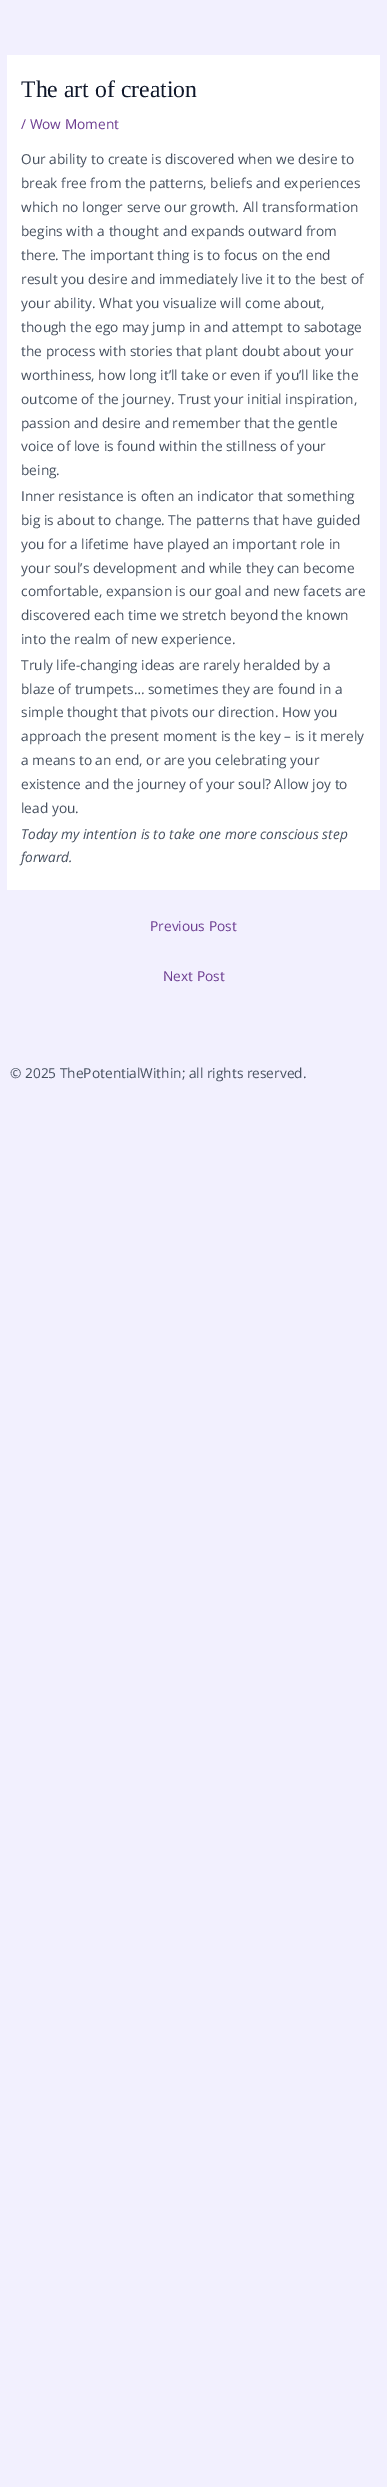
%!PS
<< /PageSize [387 2487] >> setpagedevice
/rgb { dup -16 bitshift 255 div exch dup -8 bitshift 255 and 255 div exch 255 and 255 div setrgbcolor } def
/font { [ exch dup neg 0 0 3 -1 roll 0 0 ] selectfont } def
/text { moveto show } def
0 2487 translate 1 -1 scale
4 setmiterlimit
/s1 { /LiberationSerif-Regular 23.75 font 16#0F172A rgb } def
/s2 { /OpenSans-Regular 13.7 font 16#6C3C90 rgb } def
/s3 { /OpenSans-Regular 13.7 font 16#454F5E rgb } def
/s4 { /OpenSans-Italic 13.7 font 16#454F5E rgb } def
16#F2F0FE rgb
0 0 387 2487 rectfill
16#FFFFFF rgb
7 55 373 835 rectfill
s1
(The art of creation) 21 97 text
s2
(/ Wow Moment) 21 129 text
s3
(Our ability to create is discovered when we desire to) 21 164 text
(break free from the patterns, beliefs and experiences) 21 188 text
(which no longer serve our growth. All transformation) 21 212 text
(begins with a thought and expands outward from) 21 236 text
(there. The important thing is to focus on the end) 21 260 text
(result you desire and immediately live it to the best of) 21 284 text
(your ability. What you visualize will come about,) 21 308 text
(though the ego may jump in and attempt to sabotage) 21 332 text
(the process with stories that plant doubt about your) 21 356 text
(worthiness, how long it’ll take or even if you’ll like the) 21 380 text
(outcome of the journey. Trust your initial inspiration,) 21 404 text
(passion and desire and remember that the gentle) 21 428 text
(voice of love is found within the stillness of your) 21 451 text
(being.) 21 475 text
(Inner resistance is often an indicator that something) 21 501 text
(big is about to change. The patterns that have guided) 21 525 text
(you for a lifetime have played an important role in) 21 549 text
(your soul’s development and while they can become) 21 573 text
(comfortable, expansion is our goal and new facets are) 21 596 text
(discovered each time we stretch beyond the known) 21 620 text
(into the realm of new experience.) 21 644 text
(Truly life-changing ideas are rarely heralded by a) 21 670 text
(blaze of trumpets… sometimes they are found in a) 21 694 text
(simple thought that pivots our direction. How you) 21 717 text
(approach the present moment is the key – is it merely) 21 741 text
(a means to an end, or are you celebrating your) 21 765 text
(existence and the journey of your soul? Allow joy to) 21 789 text
(lead you.) 21 813 text
s4
(Today my intention is to take one more conscious step) 21 839 text
(forward.) 21 862 text
s2
(Previous Post) 150 931 text
(Next Post) 163 981 text
s3
(© 2025 ThePotentialWithin; all rights reserved.) 10 1078 text
showpage
